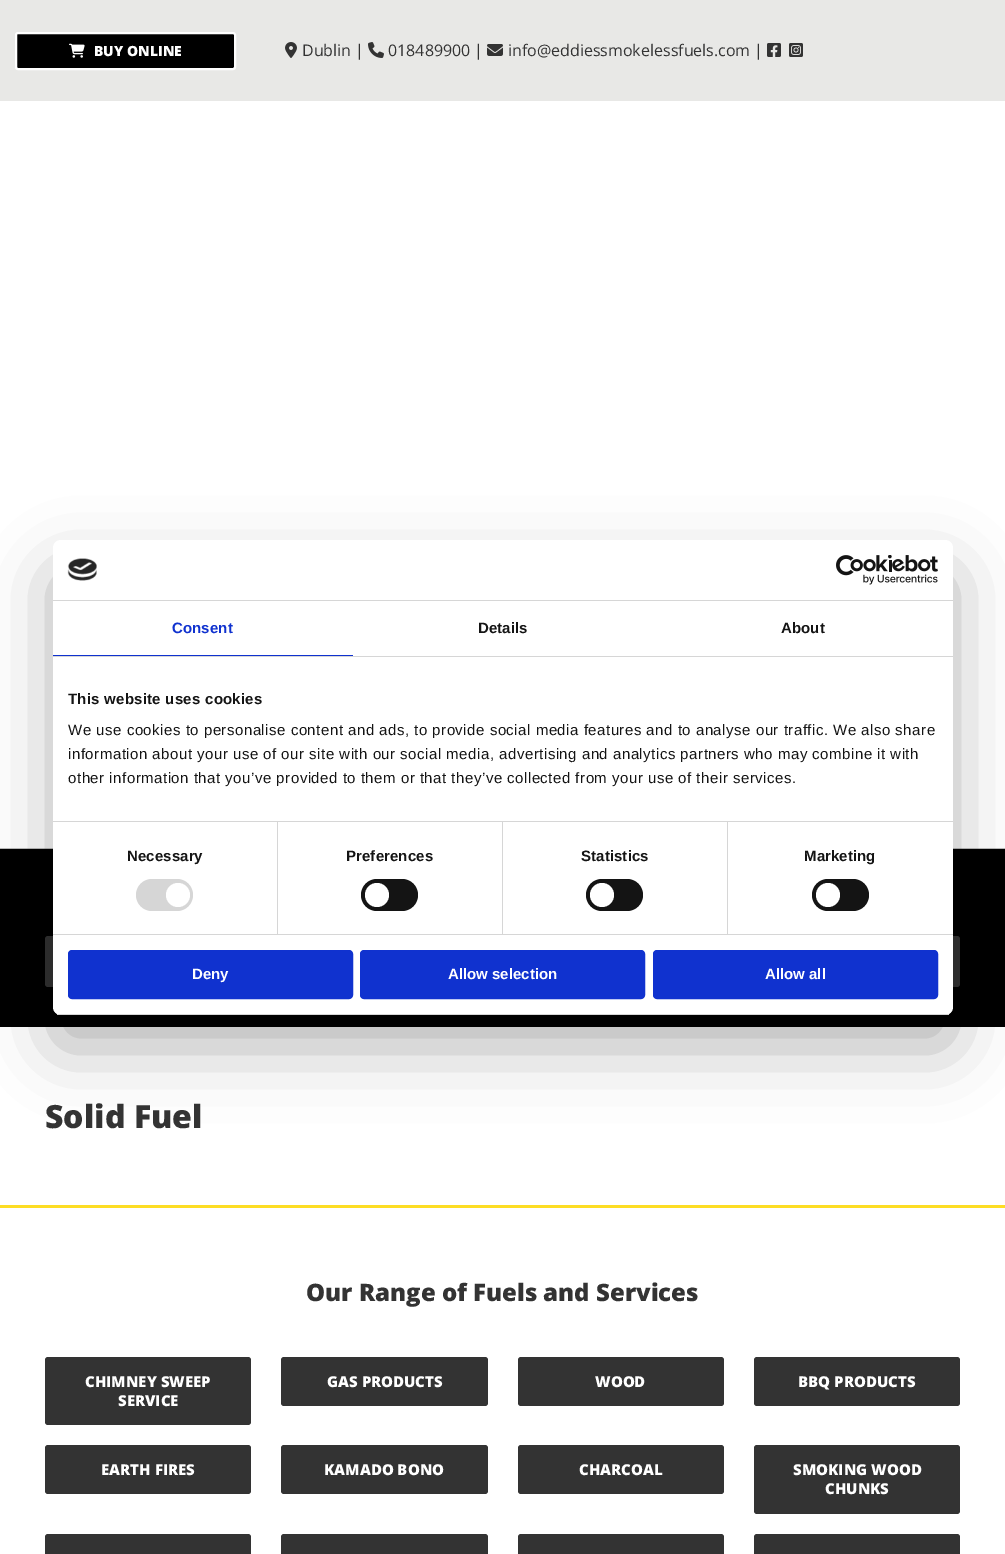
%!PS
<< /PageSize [1005 1554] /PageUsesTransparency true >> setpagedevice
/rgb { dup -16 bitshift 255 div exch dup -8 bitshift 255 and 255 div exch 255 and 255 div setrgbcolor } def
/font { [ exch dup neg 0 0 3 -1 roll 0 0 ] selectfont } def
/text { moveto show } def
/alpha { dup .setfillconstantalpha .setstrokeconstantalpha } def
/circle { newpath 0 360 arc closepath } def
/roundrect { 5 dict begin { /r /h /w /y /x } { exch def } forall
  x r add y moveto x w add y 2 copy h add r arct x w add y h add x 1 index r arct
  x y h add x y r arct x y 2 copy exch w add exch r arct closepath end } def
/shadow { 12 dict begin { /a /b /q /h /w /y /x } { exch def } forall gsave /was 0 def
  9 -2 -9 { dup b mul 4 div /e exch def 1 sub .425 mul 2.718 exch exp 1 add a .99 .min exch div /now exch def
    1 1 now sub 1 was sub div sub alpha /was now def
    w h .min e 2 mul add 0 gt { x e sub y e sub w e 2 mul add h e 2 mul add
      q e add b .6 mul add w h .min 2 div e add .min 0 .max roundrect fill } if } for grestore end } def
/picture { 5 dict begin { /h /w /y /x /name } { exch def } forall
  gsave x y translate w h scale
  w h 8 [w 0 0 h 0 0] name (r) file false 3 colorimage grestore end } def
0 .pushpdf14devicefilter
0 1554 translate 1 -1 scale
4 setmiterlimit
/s1 { /OpenSans-ExtraBold 14 font 16#FFFFFF rgb } def
/s2 { /OpenSans-Regular 16 font 16#333333 rgb } def
/s3 { /OpenSans-ExtraBold 32 font 16#333333 rgb } def
/s4 { /OpenSans-ExtraBold 24 font 16#333333 rgb } def
/s5 { /OpenSans-ExtraBold 15 font 16#FFFFFF rgb } def
/s6 { /LiberationSans-Bold 15 font 16#FFFFFF rgb } def
16#FFFFFF rgb
0 0 1005 1554 rectfill
16#E8E8E6 rgb
0 0 1005 101 rectfill
16#000000 rgb
16 33 219 36 2 roundrect gsave fill grestore
16#FFFFFF rgb
2 setlinewidth
stroke
(pic1.raw) 69 43 16 15 picture
s1
(BUY ONLINE) 94 56 text
(pic2.raw) 285 42 12 16 picture
s2
(Dublin |) 302 56 text
(pic3.raw) 368 42 16 16 picture
(018489900 |) 388 56 text
(pic4.raw) 487 44 16 12 picture
(info@eddiessmokelessfuels.com |) 508 56 text
(pic5.raw) 767 43 14 14 picture
(pic6.raw) 789 43 14 14 picture
16#BABABA rgb
0 848 1005 1 rectfill
16#000000 rgb
0 849 1005 178 rectfill
16#333333 rgb
45 936 443 51 3 roundrect fill
518 936 442 51 3 roundrect fill
s3
(Solid Fuel) 45 1128 text
16#FDDD23 rgb
0 1205 1005 3 rectfill
s4
(Our Range of Fuels and Services) 306 1301 text
45 1357 206 68 3 roundrect fill
s5
(CHIMNEY SWEEP) 85 1387 text
(SERVICE) 118 1406 text
16#333333 rgb
281 1357 207 49 3 roundrect fill
s5
(GAS PRODUCTS) 327 1387 text
16#333333 rgb
518 1357 206 49 3 roundrect fill
s5
(WOOD) 595 1387 text
16#333333 rgb
754 1357 206 49 3 roundrect fill
s5
(BBQ PRODUCTS) 798 1387 text
16#333333 rgb
45 1445 206 49 3 roundrect fill
s5
(EARTH FIRES) 101 1475 text
16#333333 rgb
281 1445 207 49 3 roundrect fill
s5
(KAMADO BONO) 324 1475 text
16#333333 rgb
518 1445 206 49 3 roundrect fill
s5
(CHARCOAL) 579 1475 text
16#333333 rgb
754 1445 206 69 3 roundrect fill
s5
(SMOKING WOOD) 793 1475 text
(CHUNKS) 825 1494 text
16#333333 rgb
45 1534 206 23 3 roundrect fill
281 1534 207 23 3 roundrect fill
518 1534 206 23 3 roundrect fill
754 1534 206 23 3 roundrect fill
16#000000 rgb
53 572 900 475 8 34 0.3 shadow
16#FFFFFF rgb
53 540 900 475 8 roundrect fill
16#D6D6D6 rgb
53 600 900 1 rectfill
(pic7.raw) 67 558 30 23 picture
(pic8.raw) 836 555 102 30 picture
53 656 900 1 rectfill
16#1032CF rgb
53 655 300 1 rectfill
/LiberationSans-Bold 15 font
172 633 moveto 0.1 0 (Consent) ashow
16#141414 rgb
478 633 moveto 0.1 0 (Details) ashow
781 633 moveto 0.1 0 (About) ashow
16#D6D6D6 rgb
53 821 900 1 rectfill
16#141414 rgb
68 704 moveto 0.25 0 (This website uses cookies) ashow
/LiberationSans-Regular 15 font
68 735 moveto 0.5 0 (We use cookies to personalise content and ads, to provide social media features and to analyse our traffic. We also share) ashow
68 759 moveto 0.5 0 (information about your use of our site with our social media, advertising and analytics partners who may combine it with) ashow
68 783 moveto 0.5 0 (other information that you’ve provided to them or that they’ve collected from your use of their services.) ashow
16#D6D6D6 rgb
53 934 900 1 rectfill
277 822 1 112 rectfill
/LiberationSans-Bold 15 font
16#141414 rgb
127 861 moveto 0.1 0 (Necessary) ashow
16#D6D6D6 rgb
136 879 57 32 16 roundrect fill
16#FFFFFF rgb
178 895 12 circle fill
16#D6D6D6 rgb
502 822 1 112 rectfill
16#141414 rgb
346 861 moveto 0.1 0 (Preferences) ashow
361 879 57 32 16 roundrect fill
16#FFFFFF rgb
377 895 12 circle fill
16#D6D6D6 rgb
727 822 1 112 rectfill
16#141414 rgb
581 861 moveto 0.1 0 (Statistics) ashow
586 879 57 32 16 roundrect fill
16#FFFFFF rgb
602 895 12 circle fill
16#141414 rgb
804 861 moveto 0.1 0 (Marketing) ashow
812 879 57 32 16 roundrect fill
16#FFFFFF rgb
828 895 12 circle fill
gsave
53 540 900 475 8 roundrect clip newpath
16#D6D6D6 rgb
53 1014 900 1 rectfill
grestore
16#1032CF rgb
69 951 283 47 3 roundrect gsave fill grestore
stroke
s6
(Deny) 192 979 text
16#1032CF rgb
361 951 283 47 3 roundrect gsave fill grestore
stroke
s6
(Allow selection) 448 979 text
16#1032CF rgb
654 951 283 47 3 roundrect gsave fill grestore
stroke
s6
(Allow all) 765 979 text
.poppdf14devicefilter showpage
